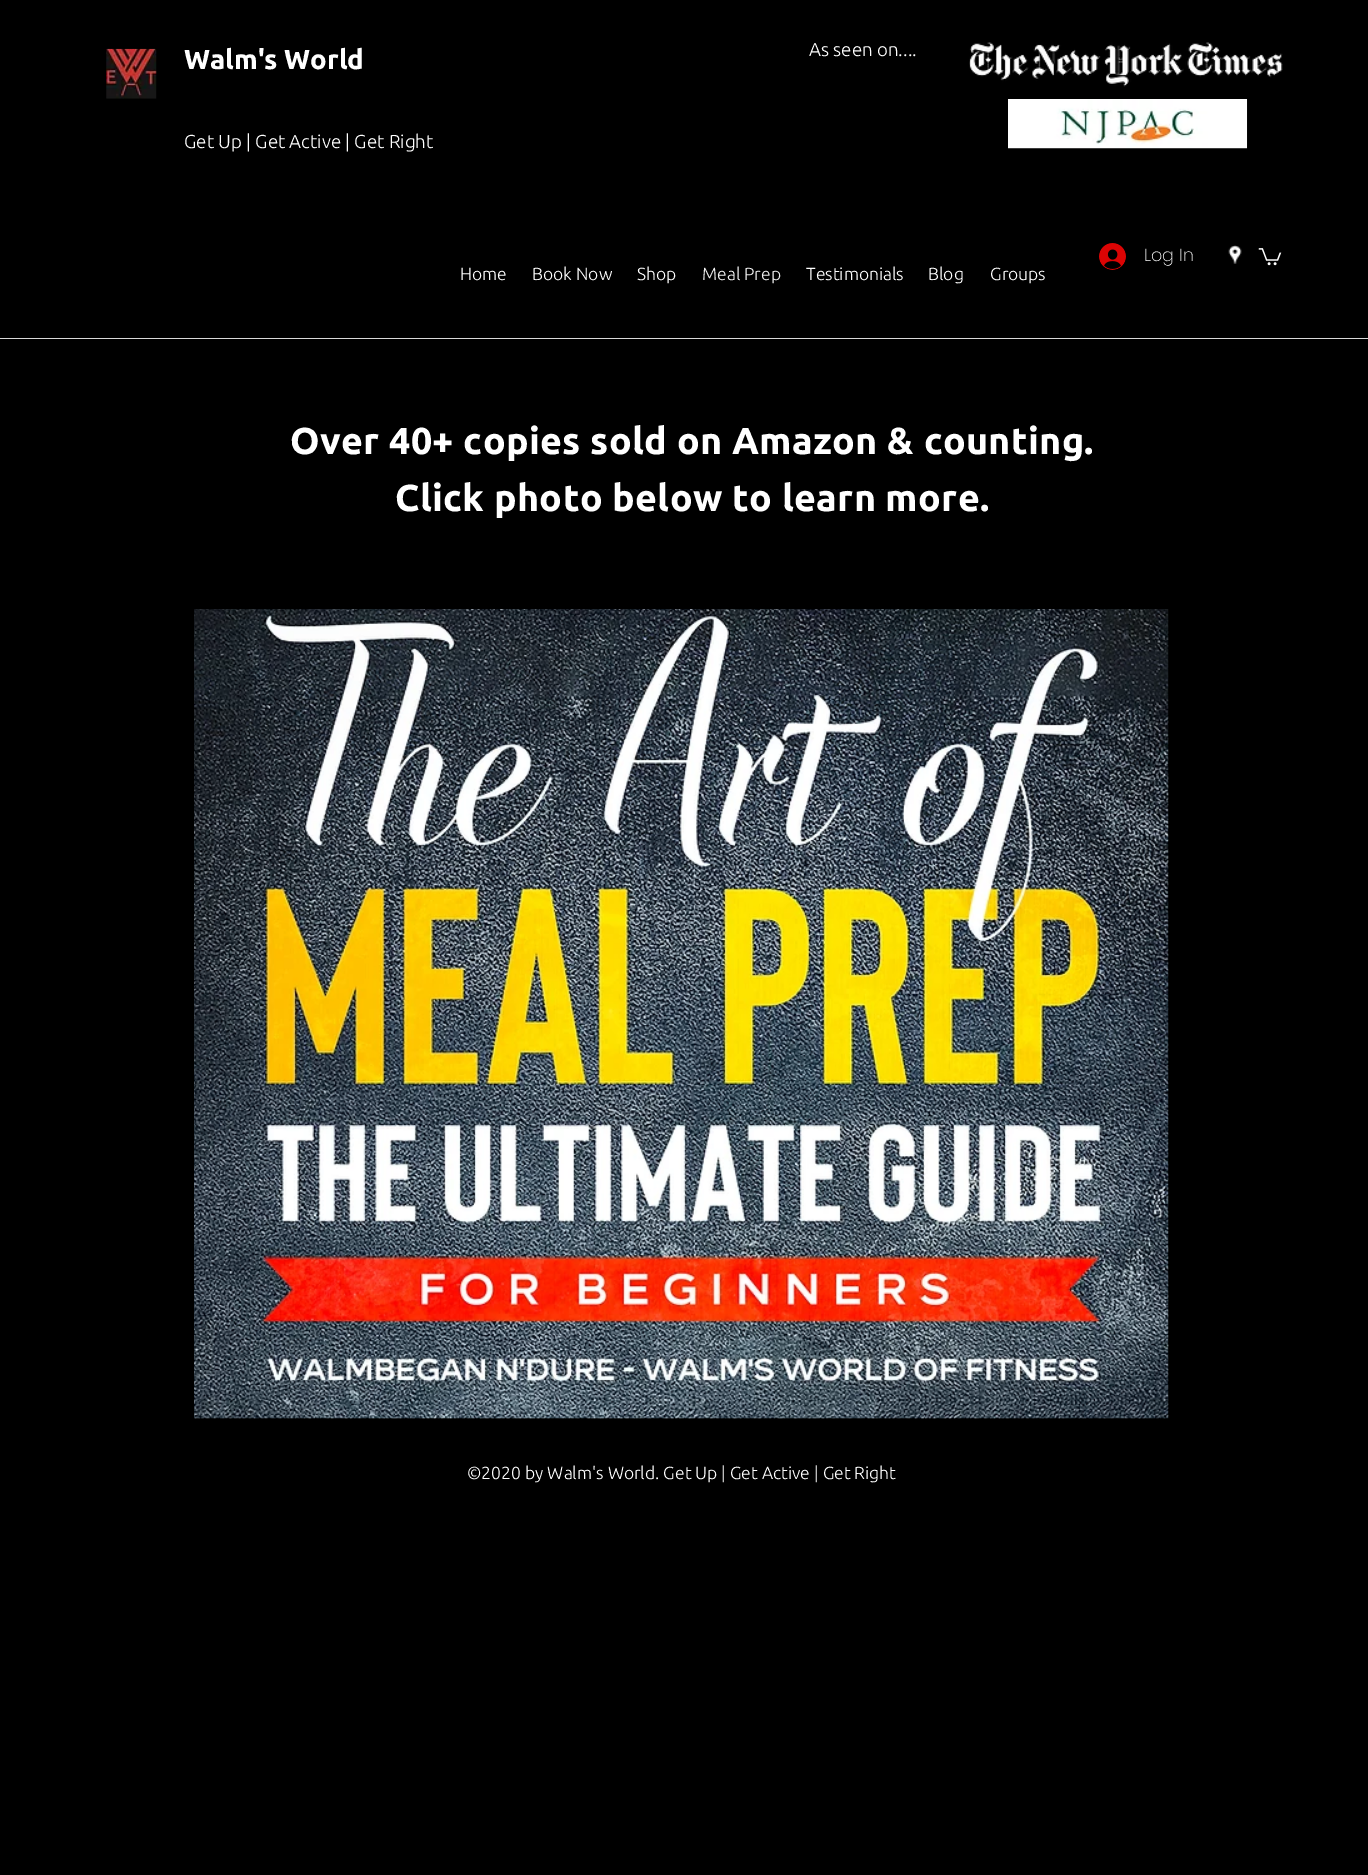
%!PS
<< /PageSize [1368 1875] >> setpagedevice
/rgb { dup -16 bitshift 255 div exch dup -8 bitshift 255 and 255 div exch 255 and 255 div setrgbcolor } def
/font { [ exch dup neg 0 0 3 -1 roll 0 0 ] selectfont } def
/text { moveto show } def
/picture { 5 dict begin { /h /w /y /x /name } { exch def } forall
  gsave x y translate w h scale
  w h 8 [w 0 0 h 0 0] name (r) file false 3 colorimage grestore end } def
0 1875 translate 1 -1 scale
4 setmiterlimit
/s1 { /Ubuntu-Bold 27.5 font 16#FFFFFF rgb } def
/s2 { /Ubuntu-Light 18.75 font 16#FFFFFF rgb } def
/s3 { /Poppins-ExtraLight 17.5 font 16#FFFFFF rgb } def
/s4 { /Ubuntu-Light 17.5 font 16#FFFFFF rgb } def
/s5 { /Ubuntu-Light 17.5 font 16#F0F0F0 rgb } def
16#000000 rgb
0 0 1368 1875 rectfill
(pic1.raw) 106 48 51 51 picture
s1
(Walm's World) 184 69 text
s2
(Get Up | Get Active | Get Right) 184 148 text
(As seen on....) 809 56 text
(pic2.raw) 969 42 314 45 picture
(pic3.raw) 1008 99 240 50 picture
(pic4.raw) 1099 243 27 27 picture
s3
(Log In) 1144 261 text
(pic5.raw) 1228 245 14 19 picture
(pic6.raw) 1258 248 24 18 picture
s4
(Home) 460 280 text
(Book Now) 532 280 text
(Shop) 637 280 text
s5
(Meal Prep) 702 280 text
s4
(Testimonials) 806 280 text
(Blog) 928 280 text
(Groups) 990 280 text
16#D9D9D9 rgb
0 338 1368 1 rectfill
/Ubuntu-Bold 37.5 font
16#FFFFFF rgb
290 454 moveto 0.4 0 (Over 40+ copies sold on Amazon & counting.) ashow
395 511 moveto 0.4 0 (Click photo below to learn more.) ashow
(pic7.raw) 194 609 975 810 picture
s4
(©2020 by Walm's World. Get Up | Get Active | Get Right) 467 1479 text
showpage
